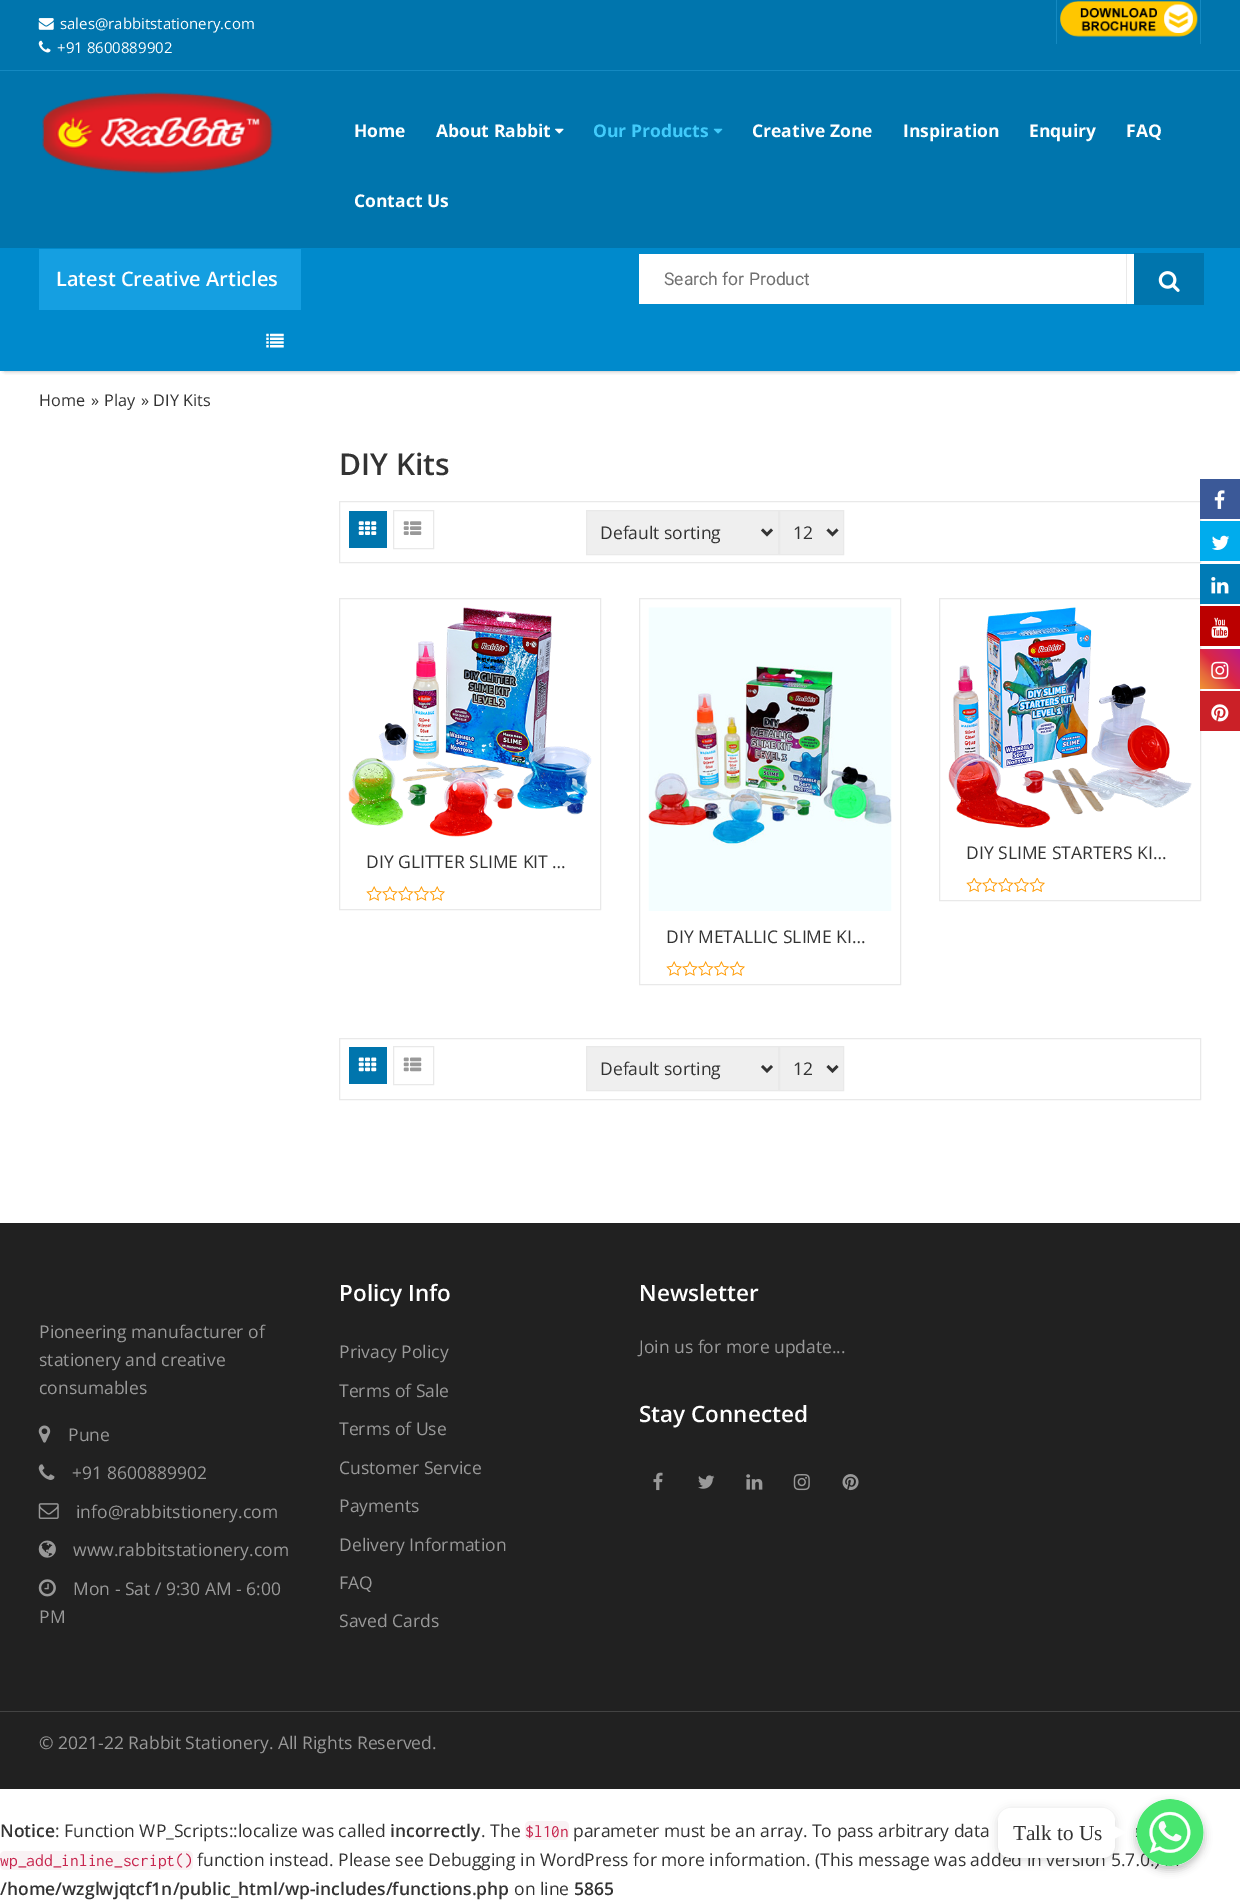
%!PS
<< /PageSize [1240 1902] /PageUsesTransparency true >> setpagedevice
/rgb { dup -16 bitshift 255 div exch dup -8 bitshift 255 and 255 div exch 255 and 255 div setrgbcolor } def
/font { [ exch dup neg 0 0 3 -1 roll 0 0 ] selectfont } def
/text { moveto show } def
/alpha { dup .setfillconstantalpha .setstrokeconstantalpha } def
/roundrect { 5 dict begin { /r /h /w /y /x } { exch def } forall
  x r add y moveto x w add y 2 copy h add r arct x w add y h add x 1 index r arct
  x y h add x y r arct x y 2 copy exch w add exch r arct closepath end } def
/shadow { 12 dict begin { /a /b /q /h /w /y /x } { exch def } forall gsave /was 0 def
  9 -2 -9 { dup b mul 4 div /e exch def 1 sub .425 mul 2.718 exch exp 1 add a .99 .min exch div /now exch def
    1 1 now sub 1 was sub div sub alpha /was now def
    w h .min e 2 mul add 0 gt { x e sub y e sub w e 2 mul add h e 2 mul add
      q e add b .6 mul add w h .min 2 div e add .min 0 .max roundrect fill } if } for grestore end } def
/picture { 5 dict begin { /h /w /y /x /name } { exch def } forall
  gsave x y translate w h scale
  w h 8 [w 0 0 h 0 0] name (r) file false 3 colorimage grestore end } def
0 .pushpdf14devicefilter
0 1902 translate 1 -1 scale
4 setmiterlimit
/s1 { /OpenSans-Regular 15 font 16#FFFFFF rgb } def
/s2 { /OpenSans-Bold 17.5 font 16#FFFFFF rgb } def
/s3 { /OpenSans-Bold 17.5 font 16#41CBFB rgb } def
/s4 { /OpenSans-SemiBold 20 font 16#FFFFFF rgb } def
/s5 { /Roboto-Regular 17.5 font 16#707070 rgb } def
/s6 { /OpenSans-Regular 16.25 font 16#333333 rgb } def
/s7 { /OpenSans-SemiBold 30 font 16#333333 rgb } def
/s8 { /OpenSans-Regular 17.5 font 16#333333 rgb } def
/s9 { /OpenSans-Regular 17.5 font 16#999999 rgb } def
/s10 { /OpenSans-SemiBold 22.5 font 16#FFFFFF rgb } def
/s11 { /OpenSans-SemiBold 17.5 font 16#333333 rgb } def
/s12 { /Inconsolata-Regular 17.5 font 16#C7254E rgb } def
/s13 { /LiberationSerif-Regular 21.25 font 16#333333 rgb } def
16#FFFFFF rgb
0 0 1240 1902 rectfill
16#0075AD rgb
0 0 1240 70 rectfill
16#1489C1 rgb
0 70 1240 1 rectfill
(pic1.raw) 38 18 16 12 picture
s1
(sales@rabbitstationery.com) 60 29 text
(pic2.raw) 38 40 13 13 picture
(+91 8600889902) 57 53 text
16#1489C1 rgb
1200 0 1 44 rectfill
1056 0 1 44 rectfill
(pic3.raw) 1060 1 138 36 picture
16#0075AD rgb
0 71 1240 177 rectfill
(pic4.raw) 42 92 231 82 picture
s2
(Home) 354 137 text
(About Rabbit) 436 137 text
(pic5.raw) 555 128 9 6 picture
s3
(Our Products) 593 137 text
(pic6.raw) 713 128 10 6 picture
s2
(Creative Zone) 752 137 text
(Inspiration) 903 137 text
(Enquiry) 1029 137 text
(FAQ) 1126 137 text
(Contact Us) 354 207 text
16#121212 rgb
5 255 1230 114 0 2.5 1 shadow
16#008ACC rgb
0 248 1240 123 rectfill
16#159FE1 rgb
39 249 262 61 rectfill
s4
(Latest Creative Articles) 56 286 text
(pic7.raw) 266 333 18 15 picture
639 254 495 50 rectfill
s5
(Search for Product) 664 285 text
16#E9E9E9 rgb
1126 254 1 50 rectfill
16#0075AD rgb
1134 253 70 52 rectfill
(pic8.raw) 1158 271 22 21 picture
s6
(Home) 39 406 text
(») 91 406 text
(Play) 104 406 text
(» DIY Kits) 141 406 text
s7
(DIY Kits) 339 475 text
16#E9E9E9 rgb
339.5 501.5 861 61 rectstroke
16#0075AD rgb
349 511 38 37 rectfill
(pic9.raw) 358 521 19 14 picture
16#E9E9E9 rgb
393.5 510.5 40 38 rectstroke
(pic10.raw) 403 521 19 14 picture
16#EFEFEF rgb
586.5 510.5 moveto 778.5 510.5 lineto 778.5 554.5 lineto 586.5 554.5 lineto closepath gsave fill grestore
16#E9E9E9 rgb
stroke
16#333333 rgb
2.5 setlinewidth
762 529.5 moveto 767 534.5 lineto 772 529.5 lineto stroke
s8
(Default sorting) 600 539 text
16#EFEFEF rgb
779.5 510.5 moveto 843.5 510.5 lineto 843.5 554.5 lineto 779.5 554.5 lineto closepath gsave fill grestore
16#E9E9E9 rgb
1 setlinewidth
stroke
16#333333 rgb
2.5 setlinewidth
827.5 529.5 moveto 832.5 534.5 lineto 837.5 529.5 lineto stroke
(12) 793 539 text
16#E9E9E9 rgb
1 setlinewidth
939.5 598.5 261 302 rectstroke
(pic11.raw) 948 607 244 221 picture
s8
(DIY SLIME STARTERS KI…) 966 859 text
(pic12.raw) 966 878 79 14 picture
16#E9E9E9 rgb
339.5 598.5 261 311 rectstroke
(pic13.raw) 348 607 244 230 picture
s8
(DIY GLITTER SLIME KIT …) 366 868 text
(pic14.raw) 366 886 79 15 picture
16#E9E9E9 rgb
639.5 598.5 261 386 rectstroke
(pic15.raw) 648 607 244 304 picture
s8
(DIY METALLIC SLIME KI…) 666 943 text
(pic14.raw) 666 961 79 15 picture
16#E9E9E9 rgb
339.5 1038.5 861 61 rectstroke
16#0075AD rgb
349 1047 38 37 rectfill
(pic16.raw) 358 1057 19 15 picture
16#E9E9E9 rgb
393.5 1046.5 40 38 rectstroke
(pic17.raw) 403 1057 19 15 picture
16#EFEFEF rgb
586.5 1046.5 moveto 778.5 1046.5 lineto 778.5 1090.5 lineto 586.5 1090.5 lineto closepath gsave fill grestore
16#E9E9E9 rgb
stroke
16#333333 rgb
2.5 setlinewidth
762 1066 moveto 767 1071 lineto 772 1066 lineto stroke
(Default sorting) 600 1075 text
16#EFEFEF rgb
779.5 1046.5 moveto 843.5 1046.5 lineto 843.5 1090.5 lineto 779.5 1090.5 lineto closepath gsave fill grestore
16#E9E9E9 rgb
1 setlinewidth
stroke
16#333333 rgb
2.5 setlinewidth
827.5 1066 moveto 832.5 1071 lineto 837.5 1066 lineto stroke
(12) 793 1075 text
16#212121 rgb
0 1223 1240 488 rectfill
s9
(Pioneering manufacturer of) 39 1338 text
(stationery and creative) 39 1366 text
(consumables) 39 1394 text
(pic18.raw) 38 1425 13 18 picture
(Pune) 68 1441 text
(pic19.raw) 38 1464 17 16 picture
(+91 8600889902) 72 1479 text
(pic20.raw) 38 1503 21 16 picture
(info@rabbitstionery.com) 76 1518 text
(pic21.raw) 38 1540 18 18 picture
(www.rabbitstationery.com) 73 1556 text
(pic22.raw) 38 1579 18 18 picture
(Mon - Sat / 9:30 AM - 6:00) 73 1595 text
(PM) 39 1623 text
s10
(Policy Info) 339 1301 text
s9
(Privacy Policy) 339 1358 text
(Terms of Sale) 339 1397 text
(Terms of Use) 339 1435 text
(Customer Service) 339 1474 text
(Payments) 339 1512 text
(Delivery Information) 339 1551 text
(FAQ) 339 1589 text
(Saved Cards) 339 1627 text
s10
(Newsletter) 639 1301 text
s9
(Join us for more update...) 639 1353 text
s10
(Stay Connected) 639 1422 text
(pic23.raw) 653 1472 10 19 picture
(pic24.raw) 698 1475 17 14 picture
(pic25.raw) 746 1474 17 16 picture
(pic26.raw) 793 1474 17 17 picture
(pic27.raw) 842 1474 17 17 picture
16#212121 rgb
0 1712 1240 77 rectfill
16#434343 rgb
0 1711 1240 1 rectfill
s9
(© 2021-22 Rabbit Stationery. All Rights Reserved.) 39 1749 text
16#3B5998 rgb
1200 479 40 40 rectfill
(pic28.raw) 1214 490 11 19 picture
16#00ACED rgb
1200 521 40 40 rectfill
(pic29.raw) 1212 535 18 15 picture
16#007BB6 rgb
1200 564 40 40 rectfill
(pic30.raw) 1211 577 18 17 picture
16#BB0000 rgb
1200 606 40 40 rectfill
(pic31.raw) 1211 617 18 21 picture
gsave 1200 649 moveto 1240 649 lineto 1240 689 lineto 1200 689 lineto closepath clip newpath
<< /ShadingType 2 /ColorSpace /DeviceRGB /Coords [1200 689 1240 649] /Extend [true true] /Function << /FunctionType 3 /Domain [0 1] /Functions [<< /FunctionType 2 /Domain [0 1] /C0 [0.941 0.58 0.2] /C1 [0.902 0.408 0.235] /N 1 >> << /FunctionType 2 /Domain [0 1] /C0 [0.902 0.408 0.235] /C1 [0.863 0.153 0.263] /N 1 >> << /FunctionType 2 /Domain [0 1] /C0 [0.863 0.153 0.263] /C1 [0.8 0.137 0.4] /N 1 >> << /FunctionType 2 /Domain [0 1] /C0 [0.8 0.137 0.4] /C1 [0.737 0.094 0.533] /N 1 >>] /Bounds [0.25 0.5 0.75] /Encode [0 1 0 1 0 1 0 1] >> >> shfill grestore
(pic32.raw) 1211 661 18 18 picture
16#CB2027 rgb
1200 691 40 40 rectfill
(pic33.raw) 1211 704 18 18 picture
s11
(Notice) 0 1837 text
s8
(: Function WP_Scripts::localize was called) 55 1837 text
s11
(incorrectly) 390 1837 text
s8
(. The) 481 1837 text
16#F9F2F4 rgb
525 1821 44 19 5 roundrect fill
s12
($l10n) 525 1837 text
s8
(parameter must be an array. To pass arbitrary data) 573 1837 text
16#000000 rgb
998 1810 117 50 13 5 0.15 shadow
s8
(function instead. Please see Debugging in WordPress for more information. \(This message was added in version 5.7.0.\) i) 197 1866 text
16#FFFFFF rgb
998 1808 117 50 13 roundrect fill
s13
(Talk to Us) 1013 1840 text
16#000000 rgb
1136 1803 68 67 33.5 4 0.25 shadow
16#FFFFFF rgb
1114 1839 moveto 1114 1826 lineto 1126 1832.5 lineto closepath fill
(pic34.raw) 1136 1799 68 67 picture
16#F9F2F4 rgb
0 1851 193 19 5 roundrect fill
s12
(wp_add_inline_script\(\)) 0 1866 text
s11
(/home/wzglwjqtcf1n/public_html/wp-includes/functions.php) 0 1895 text
s8
(on line) 514 1895 text
s11
(5865) 574 1895 text
.poppdf14devicefilter showpage
